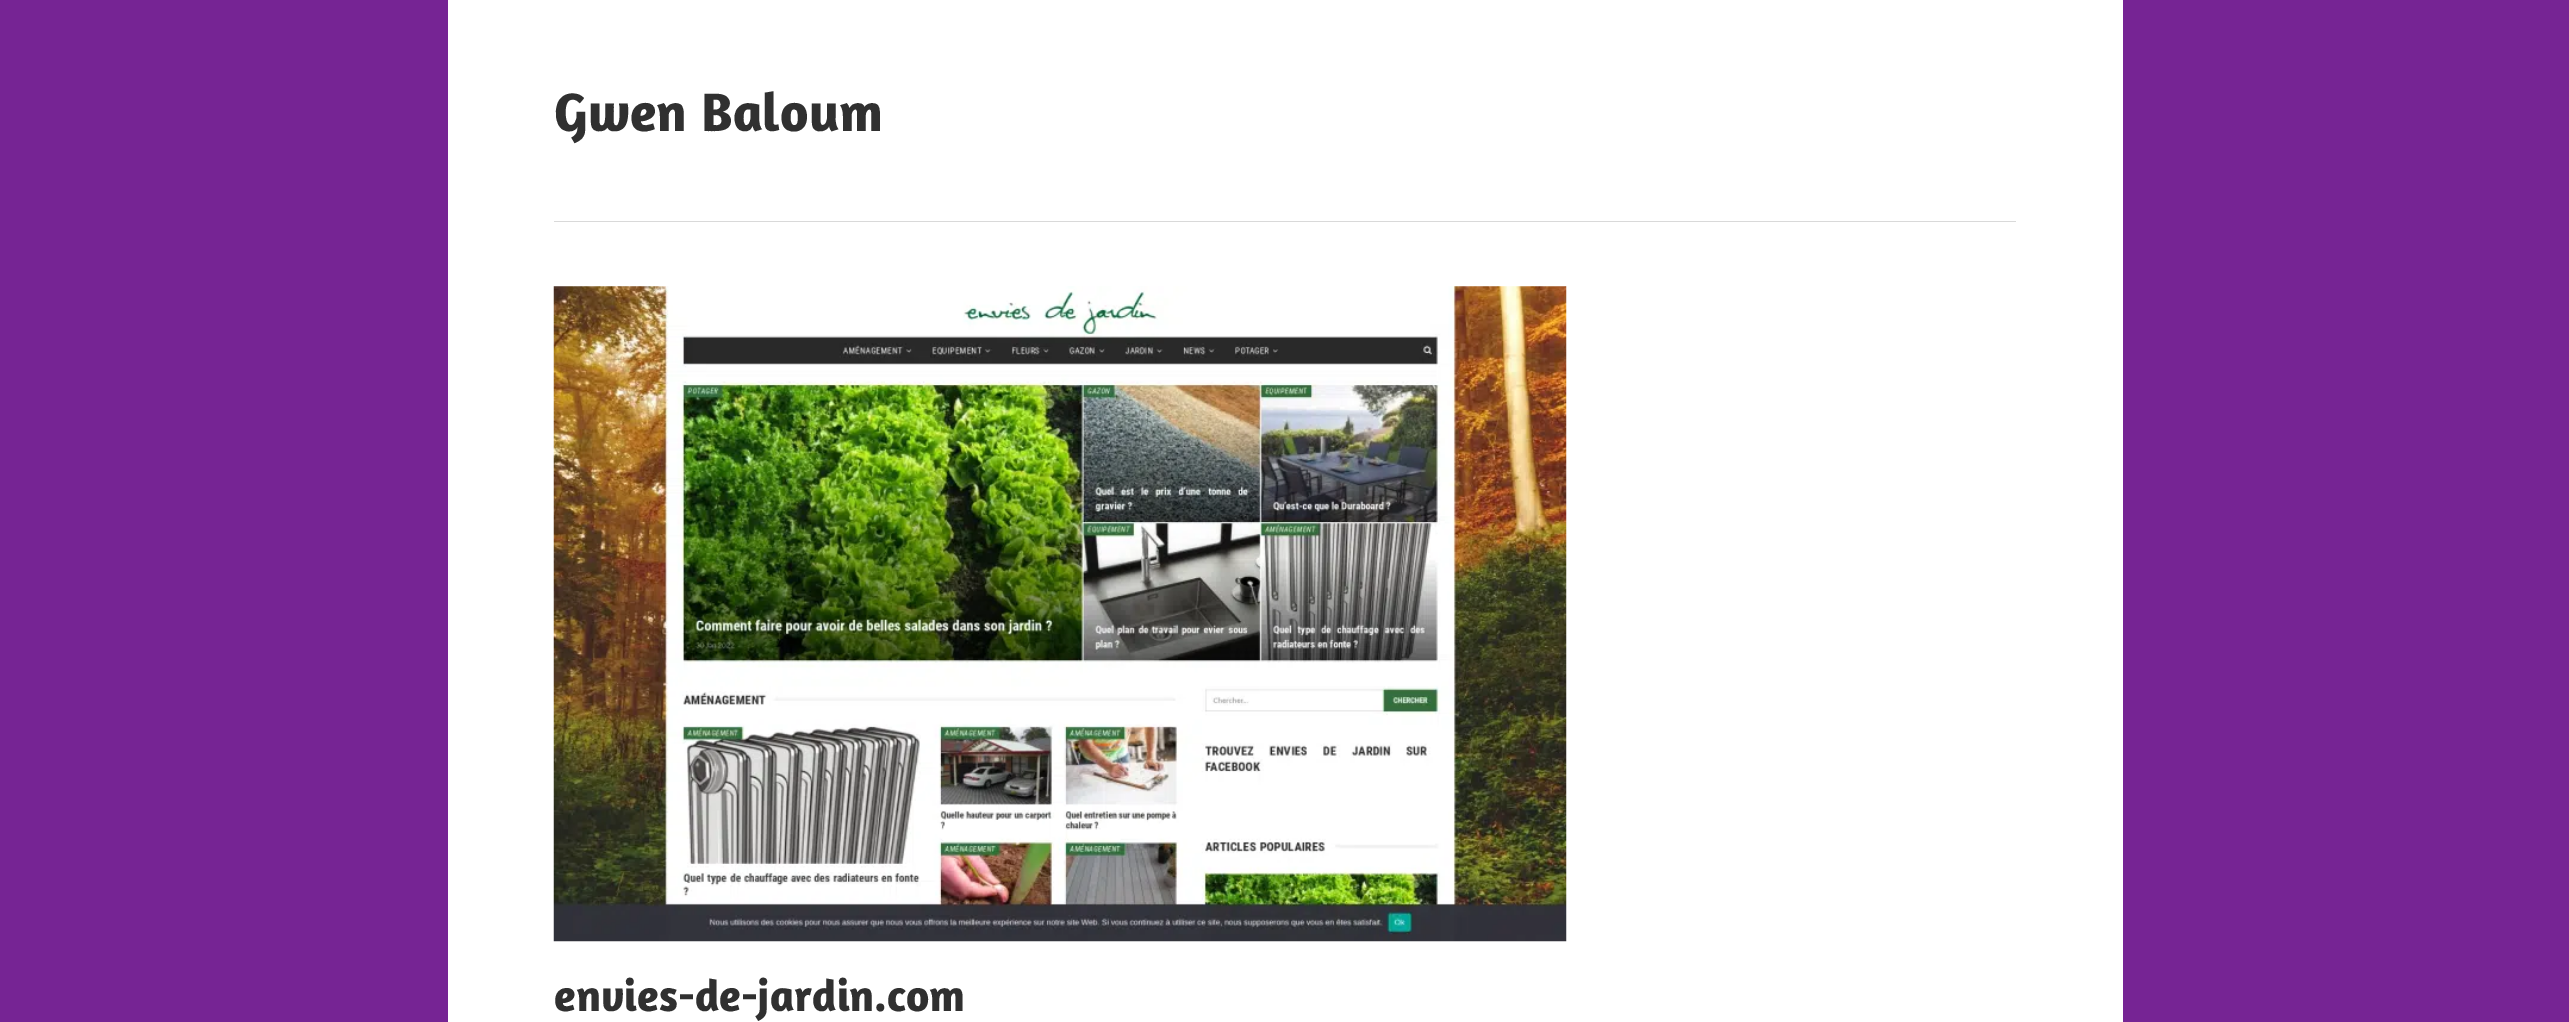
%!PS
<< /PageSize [2569 1022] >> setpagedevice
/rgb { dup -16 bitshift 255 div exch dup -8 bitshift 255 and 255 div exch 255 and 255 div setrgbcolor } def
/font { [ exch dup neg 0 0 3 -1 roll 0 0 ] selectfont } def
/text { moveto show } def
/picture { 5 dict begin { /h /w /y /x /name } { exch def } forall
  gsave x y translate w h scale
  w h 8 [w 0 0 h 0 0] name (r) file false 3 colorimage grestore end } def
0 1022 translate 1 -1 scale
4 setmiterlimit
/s1 { /Amaranth-Bold 55 font 16#303030 rgb } def
/s2 { /Amaranth-Bold 45 font 16#303030 rgb } def
16#762494 rgb
0 0 2569 1022 rectfill
16#FFFFFF rgb
448 0 1675 1022 rectfill
s1
(Gwen Baloum) 554 131 text
16#D9D9D9 rgb
554 221 1462 1 rectfill
(pic1.raw) 553 286 1014 656 picture
s2
(envies-de-jardin.com) 554 1011 text
showpage
